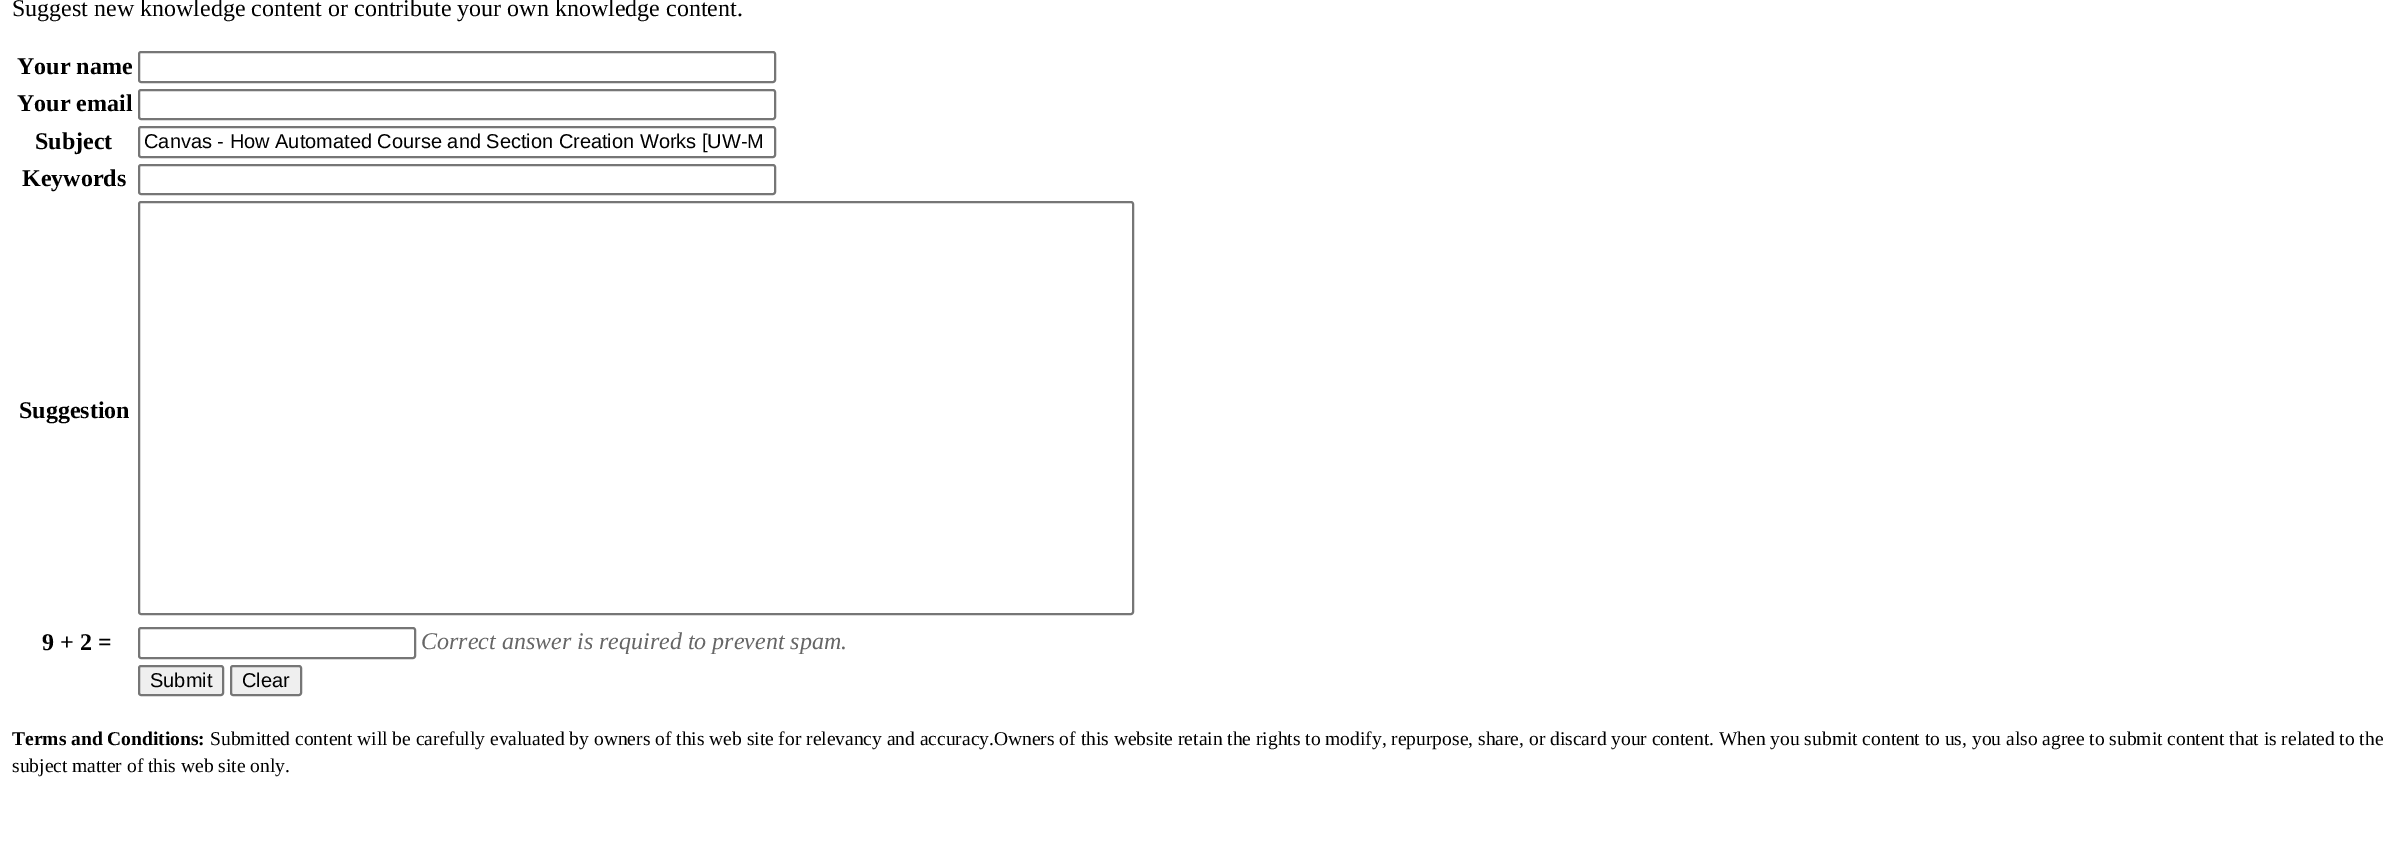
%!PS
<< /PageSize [2404 841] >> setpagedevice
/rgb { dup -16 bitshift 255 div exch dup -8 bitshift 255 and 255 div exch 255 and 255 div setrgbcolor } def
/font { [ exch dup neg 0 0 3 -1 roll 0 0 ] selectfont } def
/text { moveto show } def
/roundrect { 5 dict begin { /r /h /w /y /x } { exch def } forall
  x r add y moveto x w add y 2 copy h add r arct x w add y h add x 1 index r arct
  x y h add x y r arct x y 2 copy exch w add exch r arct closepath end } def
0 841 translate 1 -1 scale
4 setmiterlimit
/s1 { /LiberationSerif-Regular 24 font 16#000000 rgb } def
/s2 { /LiberationSerif-Bold 24 font 16#000000 rgb } def
/s3 { /LiberationSans-Regular 20 font 16#000000 rgb } def
/s4 { /LiberationSerif-Italic 24 font 16#666666 rgb } def
/s5 { /LiberationSerif-Bold 19.5 font 16#000000 rgb } def
/s6 { /LiberationSerif-Regular 19.5 font 16#000000 rgb } def
16#FFFFFF rgb
0 0 2404 841 rectfill
s1
(Suggest new knowledge content or contribute your own knowledge content.) 12 16 text
s2
(Your name) 17 74 text
16#767676 rgb
2 setlinewidth
139 52 636 30 2 roundrect stroke
s2
(Your email) 17 111 text
16#767676 rgb
139 90 636 29 2 roundrect stroke
s2
(Subject) 35 149 text
16#767676 rgb
139 127 636 30 2 roundrect stroke
s3
(Canvas - How Automated Course and Section Creation Works [UW-M) 144 148 text
s2
(Keywords) 22 186 text
16#767676 rgb
139 165 636 29 2 roundrect stroke
s2
(Suggestion) 19 418 text
16#767676 rgb
139 202 994 412 2 roundrect stroke
s2
(9 + 2 =) 42 650 text
16#767676 rgb
139 628 276 30 2 roundrect stroke
s4
(Correct answer is required to prevent spam.) 421 649 text
16#EFEFEF rgb
139 666 84 29 2 roundrect gsave fill grestore
16#767676 rgb
stroke
s3
(Submit) 150 687 text
16#EFEFEF rgb
231 666 70 29 2 roundrect gsave fill grestore
16#767676 rgb
stroke
s3
(Clear) 242 687 text
s5
(Terms and Conditions:) 12 745 text
s6
(Submitted content will be carefully evaluated by owners of this web site for relevancy and accuracy.Owners of this website retain the rights to modify, repurpose, share, or discard your content. When you submit content to us, you also agree to submit content that is related to the) 210 745 text
(subject matter of this web site only.) 12 772 text
showpage
